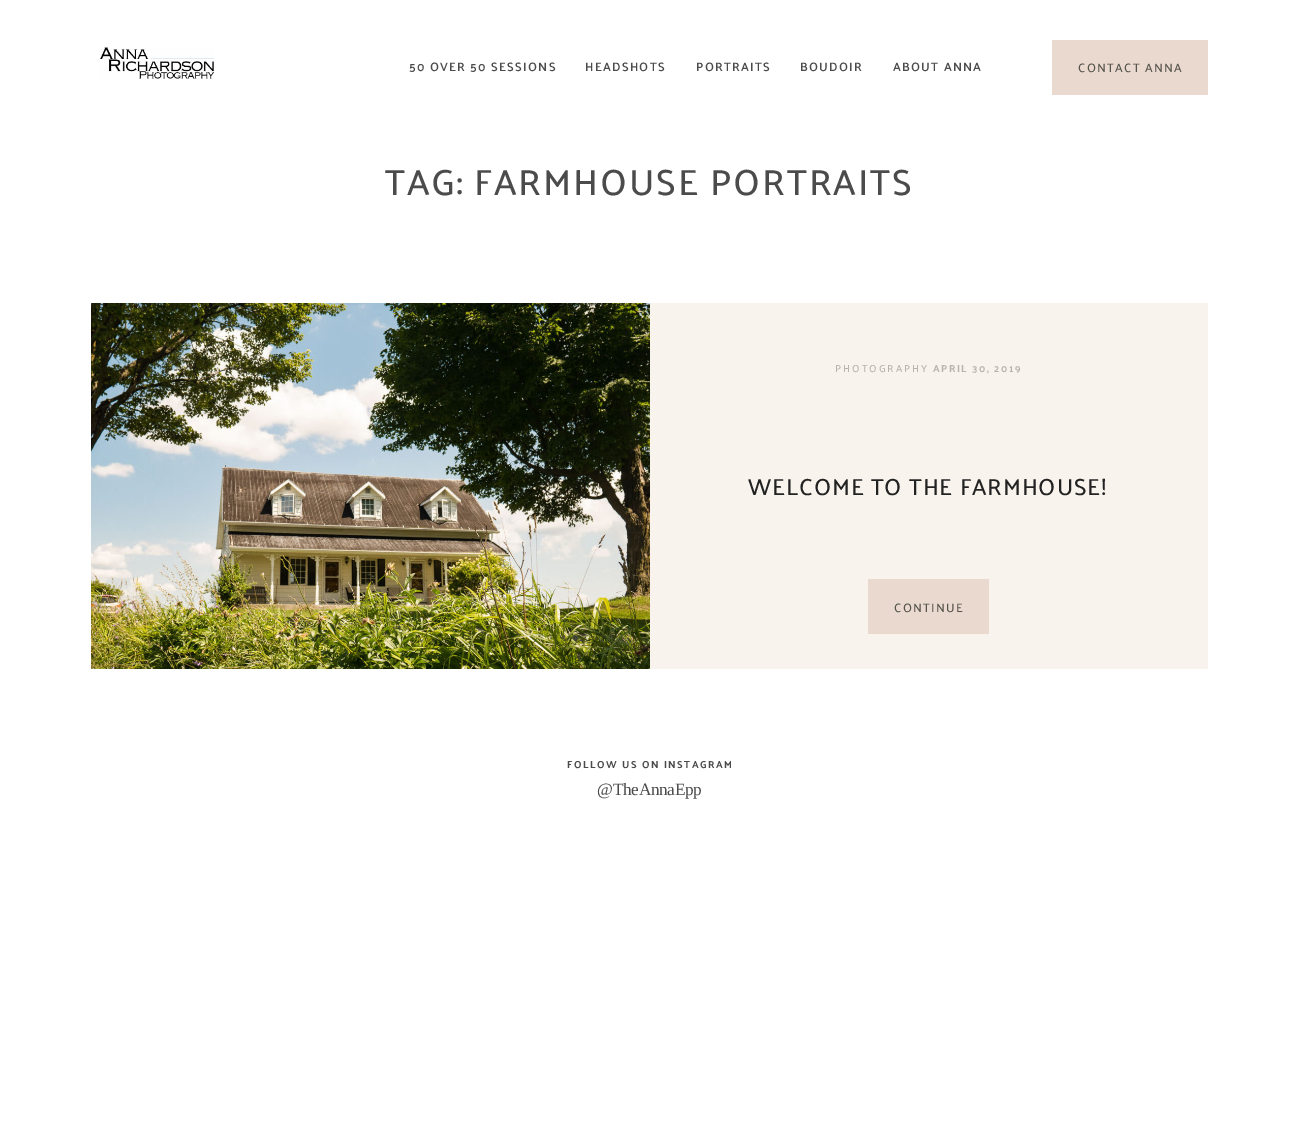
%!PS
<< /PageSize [1299 1127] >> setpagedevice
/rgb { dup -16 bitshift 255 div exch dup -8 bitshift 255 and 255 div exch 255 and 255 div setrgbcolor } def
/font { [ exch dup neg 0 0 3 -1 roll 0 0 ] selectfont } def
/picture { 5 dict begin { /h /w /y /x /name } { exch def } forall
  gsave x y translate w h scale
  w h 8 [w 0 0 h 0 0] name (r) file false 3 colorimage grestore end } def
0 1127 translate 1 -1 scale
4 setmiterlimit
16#FFFFFF rgb
0 0 1299 1127 rectfill
(pic1.raw) 100 47 114 32 picture
/Palanquin-SemiBold 12.25 font
16#4B4B4B rgb
409 71 moveto 1.25 0 (50 OVER 50 SESSIONS) ashow
585 71 moveto 1.25 0 (HEADSHOTS) ashow
696 71 moveto 1.25 0 (PORTRAITS) ashow
800 71 moveto 1.25 0 (BOUDOIR) ashow
893 71 moveto 1.25 0 (ABOUT ANNA) ashow
16#EAD9CF rgb
1052 40 156 55 rectfill
/Palanquin-Medium 12.25 font
16#55534B rgb
1078 72 moveto 1.3 0 (CONTACT ANNA) ashow
/Palanquin-Medium 36.5 font
16#4B4B4B rgb
385 195 moveto 1.8 0 (TAG: FARMHOUSE PORTRAITS) ashow
(pic2.raw) 91 303 559 366 picture
16#F8F3ED rgb
650 303 558 366 rectfill
/Palanquin-Medium 10.2 font
16#B7B3AD rgb
835 372 moveto 2 0 (PHOTOGRAPHY) ashow
/Palanquin-Bold 10.2 font
933 372 moveto 1.5 0 (APRIL 30, 2019) ashow
/Palanquin-Medium 23.3 font
16#222222 rgb
748 495 moveto 0.9 0 (WELCOME TO THE FARMHOUSE!) ashow
16#EAD9CF rgb
868 579 121 55 rectfill
/Palanquin-Medium 12.25 font
16#55534B rgb
894 612 moveto 1.3 0 (CONTINUE) ashow
/Palanquin-Bold 10.2 font
16#4B4B4B rgb
567 768 moveto 1.5 0 (FOLLOW US ON INSTAGRAM) ashow
/LiberationSerif-Regular 17.25 font
597 795 moveto -0.3 0 (@TheAnnaEpp) ashow
showpage
